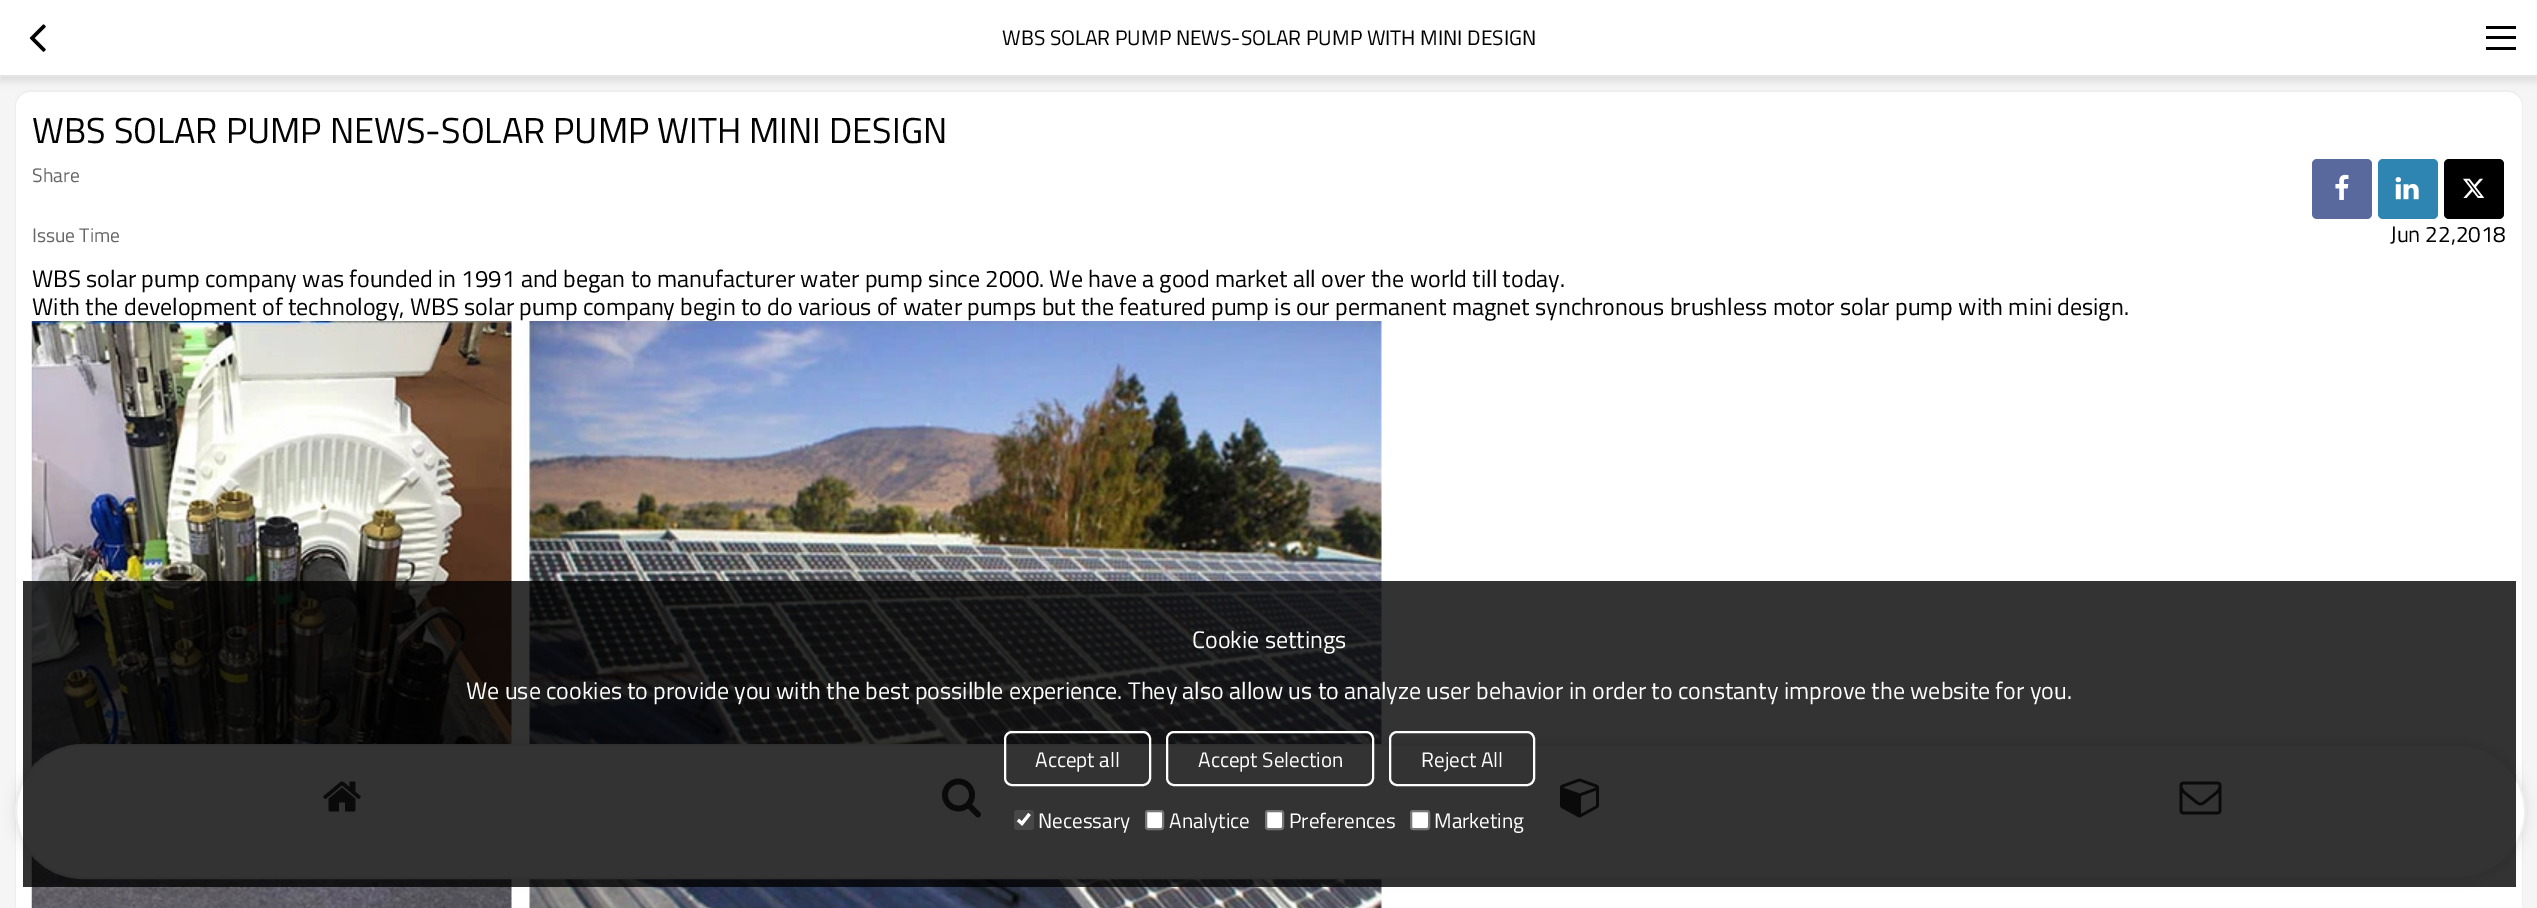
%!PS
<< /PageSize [2537 908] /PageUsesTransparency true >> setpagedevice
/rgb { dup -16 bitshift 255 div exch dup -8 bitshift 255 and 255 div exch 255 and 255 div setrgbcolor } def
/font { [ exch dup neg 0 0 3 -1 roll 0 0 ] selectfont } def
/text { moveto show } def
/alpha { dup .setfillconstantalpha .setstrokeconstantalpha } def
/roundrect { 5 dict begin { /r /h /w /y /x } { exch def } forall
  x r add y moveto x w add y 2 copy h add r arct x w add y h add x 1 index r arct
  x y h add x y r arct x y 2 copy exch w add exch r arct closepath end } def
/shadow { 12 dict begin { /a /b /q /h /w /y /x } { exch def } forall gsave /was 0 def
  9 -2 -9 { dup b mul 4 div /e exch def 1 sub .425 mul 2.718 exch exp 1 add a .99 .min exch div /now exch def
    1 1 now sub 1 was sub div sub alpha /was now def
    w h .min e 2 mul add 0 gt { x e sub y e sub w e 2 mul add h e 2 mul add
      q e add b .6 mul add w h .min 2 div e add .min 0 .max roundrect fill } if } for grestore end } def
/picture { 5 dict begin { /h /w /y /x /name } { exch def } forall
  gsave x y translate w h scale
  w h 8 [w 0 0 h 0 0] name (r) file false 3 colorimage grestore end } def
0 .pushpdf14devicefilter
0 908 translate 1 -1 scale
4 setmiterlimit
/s1 { /TitilliumWeb-Regular 21 font 16#000000 rgb } def
/s2 { /TitilliumWeb-Regular 36 font 16#000000 rgb } def
/s3 { /TitilliumWeb-Regular 19.5 font 16#666666 rgb } def
/s4 { /TitilliumWeb-Regular 22.5 font 16#000000 rgb } def
/s5 { /TitilliumWeb-Regular 24 font 16#000000 rgb } def
/s6 { /TitilliumWeb-Regular 24 font 16#FFFFFF rgb } def
/s7 { /TitilliumWeb-Regular 21 font 16#FFFFFF rgb } def
16#F5F5F5 rgb
0 0 2537 908 rectfill
16#FFFFFF rgb
15 90 2508 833 15 roundrect fill
16#EEEEEE rgb
30 90 moveto 2508 90 lineto 2516 90 2523 97 2523 105 curveto 2523 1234 lineto 2523 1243 2516 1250 2508 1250 curveto 30 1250 lineto 22 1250 15 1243 15 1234 curveto 15 105 lineto 15 97 22 90 30 90 curveto closepath 30 92 moveto 2508 92 lineto 2515 92 2522 98 2522 105 curveto 2522 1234 lineto 2522 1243 2515 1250 2508 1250 curveto 30 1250 lineto 23 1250 16 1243 16 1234 curveto 16 105 lineto 16 98 23 92 30 92 curveto closepath eofill
16#000000 rgb
0 5 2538 76 0 4 0.1 shadow
16#FFFFFF rgb
0 0 2537 75 rectfill
16#E5E5E5 rgb
0 75 2537 2 rectfill
(pic1.raw) 29 24 17 28 picture
s1
(WBS SOLAR PUMP NEWS-SOLAR PUMP WITH MINI DESIGN) 1002 45 text
2486 26 30 3 rectfill
2486 36 30 3 rectfill
2486 47 30 3 rectfill
s2
(WBS SOLAR PUMP NEWS-SOLAR PUMP WITH MINI DESIGN) 32 143 text
s3
(Share) 32 182 text
16#59699E rgb
2312 159 60 60 5 roundrect fill
(pic2.raw) 2335 174 14 26 picture
16#2F85B2 rgb
2378 159 60 60 5 roundrect fill
(pic3.raw) 2395 177 24 23 picture
16#000000 rgb
2444 159 60 60 5 roundrect fill
(pic4.raw) 2463 178 22 20 picture
s3
(Issue Time) 32 242 text
s4
(Jun 22,2018) 2390 242 text
s5
(WBS solar pump company was founded in 1991 and began to manufacturer water pump since 2000. We have a good market all over the world till today.) 32 287 text
(With the development of technology, WBS solar pump company begin to do various of water pumps but the featured pump is our permanent magnet synchronous brushless motor solar pump with mini design.) 32 315 text
(pic5.raw) 31 321 1351 587 picture
15 744 2511 135 67.5 6 0.1 shadow
16#FFFFFF rgb
16 745 2509 133 66.5 roundrect gsave fill grestore
16#EEEEEE rgb
2 setlinewidth
stroke
(pic6.raw) 323 781 38 31 picture
(pic7.raw) 942 778 39 40 picture
(pic8.raw) 1560 778 39 40 picture
(pic9.raw) 2179 781 43 34 picture
0.8 alpha
16#000000 rgb
23 581 2493 306 rectfill
1 alpha
s6
(Cookie settings) 1192 648 text
(We use cookies to provide you with the best possilble experience. They also allow us to analyze user behavior in order to constanty improve the website for you.) 466 699 text
1005 732 145 53 7 roundrect stroke
s7
(Accept all) 1035 767 text
1167 732 206 53 7 roundrect stroke
(Accept Selection) 1198 767 text
1390 732 144 53 7 roundrect stroke
(Reject All) 1421 767 text
16#474747 rgb
1014 810 20 20 3 roundrect fill
16#FFFFFF rgb
3.1 setlinewidth
1018 820 moveto 1022 823.5 lineto 1029.5 814 lineto stroke
(Necessary) 1038 828 text
1146 811 17 18 2 roundrect gsave fill grestore
16#767676 rgb
2 setlinewidth
stroke
s7
(Analytice) 1169 828 text
1266 811 17 18 2 roundrect gsave fill grestore
16#767676 rgb
stroke
s7
(Preferences) 1289 828 text
1411 811 18 18 2 roundrect gsave fill grestore
16#767676 rgb
stroke
s7
(Marketing) 1434 828 text
.poppdf14devicefilter showpage
